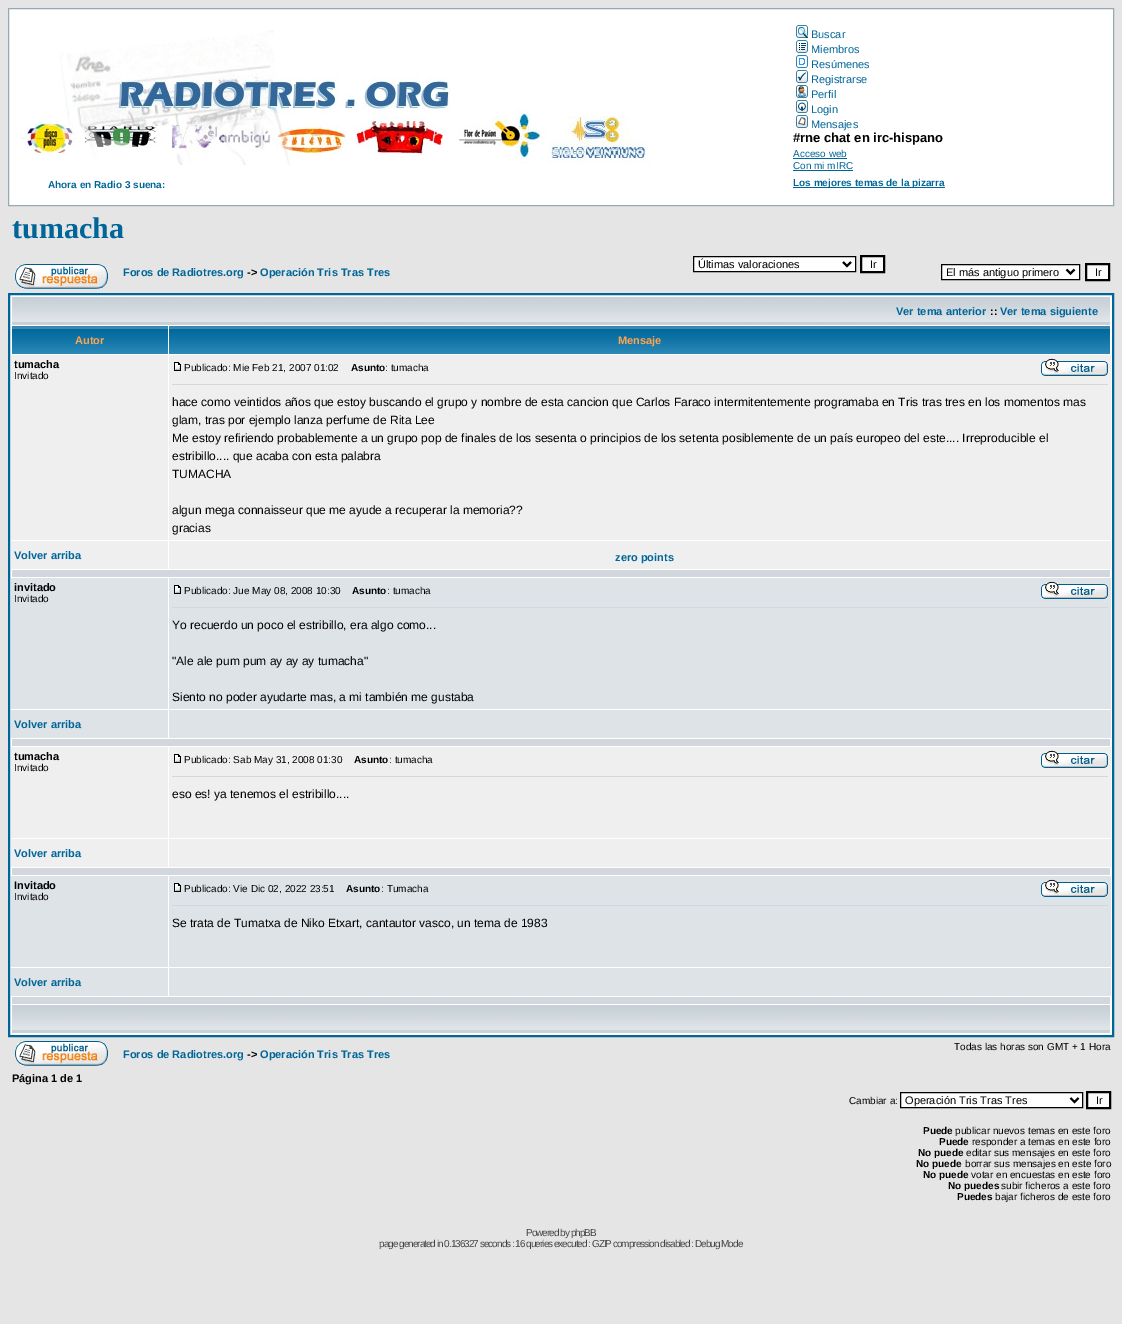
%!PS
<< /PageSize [1122 1324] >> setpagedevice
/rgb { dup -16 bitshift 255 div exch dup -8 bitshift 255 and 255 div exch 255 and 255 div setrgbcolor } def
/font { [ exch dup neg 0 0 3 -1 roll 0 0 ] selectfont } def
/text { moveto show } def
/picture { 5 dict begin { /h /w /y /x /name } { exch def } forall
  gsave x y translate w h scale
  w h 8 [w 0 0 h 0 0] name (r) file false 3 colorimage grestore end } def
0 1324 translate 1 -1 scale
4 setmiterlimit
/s1 { /LiberationSans-Regular 11 font 16#006699 rgb } def
/s2 { /LiberationSans-Bold 13 font 16#000000 rgb } def
/s3 { /LiberationSans-Regular 10 font 16#006699 rgb } def
/s4 { /LiberationSans-Bold 10 font 16#006699 rgb } def
/s5 { /LiberationSerif-Bold 30 font 16#006699 rgb } def
/s6 { /LiberationSans-Bold 11 font 16#006699 rgb } def
/s7 { /LiberationSans-Bold 11 font 16#000000 rgb } def
/s8 { /LiberationSans-Regular 11 font 16#000000 rgb } def
/s9 { /LiberationSans-Bold 11 font 16#FFA34F rgb } def
/s10 { /LiberationSans-Regular 10 font 16#000000 rgb } def
/s11 { /LiberationSans-Bold 10 font 16#000000 rgb } def
/s12 { /LiberationSans-Regular 12 font 16#000000 rgb } def
16#E5E5E5 rgb
0 0 1122 1324 rectfill
16#FFFFFF rgb
8.5 8.5 moveto 1113.5 8.5 lineto 1113.5 205.5 lineto 8.5 205.5 lineto closepath gsave fill grestore
16#98AAB1 rgb
stroke
(pic1.raw) 21 30 630 135 picture
(pic2.raw) 796 25 12 13 picture
s1
(Buscar) 811 38 text
(pic3.raw) 796 40 12 13 picture
(Miembros) 811 53 text
(pic4.raw) 796 55 12 13 picture
(Resúmenes) 811 68 text
(pic5.raw) 796 70 12 13 picture
(Registrarse) 811 83 text
(pic6.raw) 796 85 12 13 picture
(Perfil) 811 98 text
(pic7.raw) 796 100 12 13 picture
(Login) 811 113 text
(pic8.raw) 796 115 12 13 picture
(Mensajes) 811 128 text
s2
(#rne chat en irc-hispano) 793 142 text
s3
(Acceso web) 793 157 text
793 158 54 1 rectfill
(Con mi mIRC) 793 169 text
793 170 60 1 rectfill
s4
(Ahora en Radio 3 suena:) 48 188 text
793 187 152 1 rectfill
(Los mejores temas de la pizarra) 793 186 text
s5
(tumacha) 12 238 text
(pic9.raw) 15 264 93 25 picture
s6
(Foros de Radiotres.org) 123 276 text
s7
(->) 247 276 text
s6
(Operación Tris Tras Tres) 260 276 text
16#FFFFFF rgb
693.5 256.5 moveto 855.5 256.5 lineto 855.5 271.5 lineto 693.5 271.5 lineto closepath gsave fill grestore
16#000000 rgb
stroke
2 setlinewidth
843 262 moveto 847 266 lineto 851 262 lineto stroke
s8
(Últimas valoraciones) 698 268 text
16#FAFAFA rgb
861 256 moveto 884 256 lineto 884 272 lineto 861 272 lineto closepath gsave fill grestore
16#000000 rgb
stroke
(Ir) 870 268 text
16#FFFFFF rgb
941.5 264.5 moveto 1079.5 264.5 lineto 1079.5 279.5 lineto 941.5 279.5 lineto closepath gsave fill grestore
16#000000 rgb
1 setlinewidth
stroke
2 setlinewidth
1066.5 269.5 moveto 1070.5 273.5 lineto 1074.5 269.5 lineto stroke
(El más antiguo primero) 946 276 text
16#FAFAFA rgb
1086 264 moveto 1109 264 lineto 1109 280 lineto 1086 280 lineto closepath gsave fill grestore
16#000000 rgb
stroke
(Ir) 1095 276 text
16#FFFFFF rgb
9 294 moveto 1113 294 lineto 1113 1036 lineto 9 1036 lineto closepath gsave fill grestore
16#006699 rgb
stroke
(pic10.raw) 12 297 1098 28 picture
s6
(Ver tema anterior) 896 315 text
s7
(::) 990 315 text
s6
(Ver tema siguiente) 1000 315 text
(pic11.raw) 12 326 156 28 picture
s9
(Autor) 75 344 text
(pic12.raw) 169 326 941 28 picture
(Mensaje) 618 344 text
16#EFEFEF rgb
11 355 157 185 rectfill
s7
(tumacha) 14 368 text
s10
(Invitado) 14 379 text
16#EFEFEF rgb
169 355 942 185 rectfill
(pic13.raw) 174 362 7 9 picture
s10
(Publicado: Mie Feb 21, 2007 01:02) 184 371 text
s11
(Asunto) 351 371 text
s10
(: tumacha) 385 371 text
(pic14.raw) 1041 358 67 18 picture
16#D1D7DC rgb
172 384 936 1 rectfill
s12
(hace como veintidos años que estoy buscando el grupo y nombre de esta cancion que Carlos Faraco intermitentemente programaba en Tris tras tres en los momentos mas) 172 406 text
(glam, tras por ejemplo lanza perfume de Rita Lee) 172 424 text
(Me estoy refiriendo probablemente a un grupo pop de finales de los sesenta o principios de los setenta posiblemente de un país europeo del este.... Irreproducible el) 172 442 text
(estribillo.... que acaba con esta palabra) 172 460 text
(TUMACHA) 172 478 text
(algun mega connaisseur que me ayude a recuperar la memoria??) 172 514 text
(gracias) 172 532 text
16#EFEFEF rgb
11 541 157 28 rectfill
s6
(Volver arriba) 14 559 text
16#EFEFEF rgb
169 541 942 28 rectfill
s6
(zero points) 615 561 text
16#D1D7DC rgb
12 570 1098 7 rectfill
16#DEE3E7 rgb
11 578 157 131 rectfill
s7
(invitado) 14 591 text
s10
(Invitado) 14 602 text
16#DEE3E7 rgb
169 578 942 131 rectfill
(pic15.raw) 174 585 7 9 picture
s10
(Publicado: Jue May 08, 2008 10:30) 184 594 text
s11
(Asunto) 352 594 text
s10
(: tumacha) 387 594 text
(pic16.raw) 1041 581 67 18 picture
16#D1D7DC rgb
172 607 936 1 rectfill
s12
(Yo recuerdo un poco el estribillo, era algo como...) 172 629 text
("Ale ale pum pum ay ay ay tumacha") 172 665 text
(Siento no poder ayudarte mas, a mi también me gustaba) 172 701 text
16#DEE3E7 rgb
11 710 157 28 rectfill
s6
(Volver arriba) 14 728 text
16#DEE3E7 rgb
169 710 942 28 rectfill
16#D1D7DC rgb
12 739 1098 7 rectfill
16#EFEFEF rgb
11 747 157 91 rectfill
s7
(tumacha) 14 760 text
s10
(Invitado) 14 771 text
16#EFEFEF rgb
169 747 942 91 rectfill
(pic13.raw) 174 754 7 9 picture
s10
(Publicado: Sab May 31, 2008 01:30) 184 763 text
s11
(Asunto) 354 763 text
s10
(: tumacha) 389 763 text
(pic14.raw) 1041 750 67 18 picture
16#D1D7DC rgb
172 776 936 1 rectfill
s12
(eso es! ya tenemos el estribillo....) 172 798 text
16#EFEFEF rgb
11 839 157 28 rectfill
s6
(Volver arriba) 14 857 text
16#EFEFEF rgb
169 839 942 28 rectfill
16#D1D7DC rgb
12 868 1098 7 rectfill
16#DEE3E7 rgb
11 876 157 91 rectfill
s7
(Invitado) 14 889 text
s10
(Invitado) 14 900 text
16#DEE3E7 rgb
169 876 942 91 rectfill
(pic15.raw) 174 883 7 9 picture
s10
(Publicado: Vie Dic 02, 2022 23:51) 184 892 text
s11
(Asunto) 346 892 text
s10
(: Tumacha) 381 892 text
(pic16.raw) 1041 879 67 18 picture
16#D1D7DC rgb
172 905 936 1 rectfill
s12
(Se trata de Tumatxa de Niko Etxart, cantautor vasco, un tema de 1983) 172 927 text
16#DEE3E7 rgb
11 968 157 28 rectfill
s6
(Volver arriba) 14 986 text
16#DEE3E7 rgb
169 968 942 28 rectfill
16#D1D7DC rgb
12 997 1098 7 rectfill
(pic10.raw) 12 1005 1098 28 picture
(pic9.raw) 15 1041 93 25 picture
s10
(Todas las horas son GMT + 1 Hora) 954 1050 text
s6
(Foros de Radiotres.org) 123 1058 text
s7
(->) 247 1058 text
s6
(Operación Tris Tras Tres) 260 1058 text
s7
(Página 1 de 1) 12 1082 text
s10
(Cambiar a:) 849 1104 text
16#FFFFFF rgb
900.5 1092.5 moveto 1082.5 1092.5 lineto 1082.5 1107.5 lineto 900.5 1107.5 lineto closepath gsave fill grestore
16#000000 rgb
1 setlinewidth
stroke
2 setlinewidth
1070.5 1098 moveto 1074.5 1102 lineto 1078.5 1098 lineto stroke
s8
(Operación Tris Tras Tres) 905 1104 text
16#FAFAFA rgb
1087 1092 moveto 1110 1092 lineto 1110 1108 lineto 1087 1108 lineto closepath gsave fill grestore
16#000000 rgb
stroke
(Ir) 1096 1104 text
s11
(Puede) 923 1134 text
s10
(publicar nuevos temas en este foro) 955 1134 text
s11
(Puede) 939 1145 text
s10
(responder a temas en este foro) 972 1145 text
s11
(No puede) 918 1156 text
s10
(editar sus mensajes en este foro) 966 1156 text
s11
(No puede) 916 1167 text
s10
(borrar sus mensajes en este foro) 965 1167 text
s11
(No puede) 923 1178 text
s10
(votar en encuestas en este foro) 971 1178 text
s11
(No puedes) 948 1189 text
s10
(subir ficheros a este foro) 1001 1189 text
s11
(Puedes) 957 1200 text
s10
(bajar ficheros de este foro) 995 1200 text
16#444444 rgb
526 1236 moveto -1 0 (Powered by phpBB) ashow
379 1247 moveto -1 0 (page generated in 0.136327 seconds : 16 queries executed : GZIP compression disabled : Debug Mode) ashow
showpage
